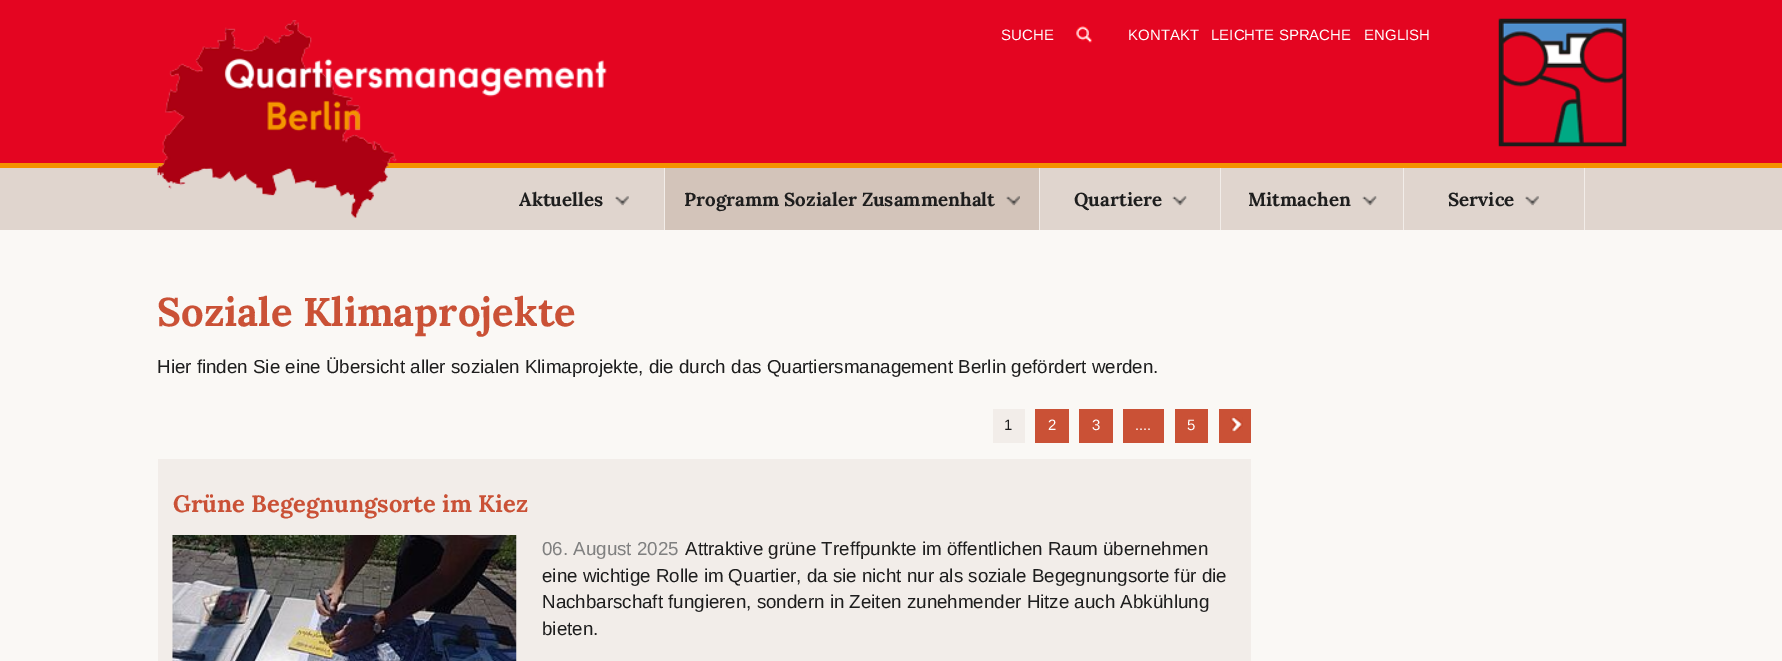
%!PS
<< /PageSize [1782 661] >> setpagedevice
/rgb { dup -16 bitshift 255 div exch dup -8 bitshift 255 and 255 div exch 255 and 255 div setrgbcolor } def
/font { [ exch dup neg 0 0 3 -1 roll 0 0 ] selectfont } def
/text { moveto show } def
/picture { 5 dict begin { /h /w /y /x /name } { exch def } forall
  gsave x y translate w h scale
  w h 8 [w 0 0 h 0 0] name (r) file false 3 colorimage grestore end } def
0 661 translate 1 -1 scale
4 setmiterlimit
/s1 { /LiberationSans-Regular 15 font 16#FFFFFF rgb } def
/s2 { /Lora-Bold 18.75 font 16#1E1E1E rgb } def
/s3 { /Lora-Bold 40 font 16#CA5136 rgb } def
/s4 { /LiberationSans-Regular 18.75 font 16#1E1E1E rgb } def
/s5 { /LiberationSans-Regular 15 font 16#1E1E1E rgb } def
/s6 { /Lora-Bold 23.75 font 16#CA5136 rgb } def
/s7 { /LiberationSans-Regular 18.75 font 16#808080 rgb } def
16#FAF8F5 rgb
0 0 1782 661 rectfill
16#E40521 rgb
0 0 1782 163 rectfill
16#E0D5CE rgb
0 168 1782 62 rectfill
16#F39300 rgb
0 163 1782 5 rectfill
(pic1.raw) 157 20 450 198 picture
s1
(SUCHE) 1001 40 text
(pic2.raw) 1076 26 17 17 picture
(KONTAKT) 1128 40 text
(LEICHTE SPRACHE) 1211 40 text
(ENGLISH) 1364 40 text
(pic3.raw) 1498 18 129 129 picture
16#F2EDE9 rgb
664 168 1 62 rectfill
s2
(Aktuelles) 519 206 text
(pic4.raw) 615 196 14 10 picture
16#F2EDE9 rgb
1039 168 1 62 rectfill
16#D3C4BA rgb
665 168 374 62 rectfill
s2
(Programm Sozialer Zusammenhalt) 684 206 text
(pic5.raw) 1006 196 14 10 picture
16#F2EDE9 rgb
1220 168 1 62 rectfill
s2
(Quartiere) 1074 206 text
(pic6.raw) 1172 196 15 10 picture
16#F2EDE9 rgb
1403 168 1 62 rectfill
s2
(Mitmachen) 1248 206 text
(pic7.raw) 1362 196 15 10 picture
16#F2EDE9 rgb
1584 168 1 62 rectfill
s2
(Service) 1448 206 text
(pic4.raw) 1525 196 14 10 picture
s3
(Soziale Klimaprojekte) 157 326 text
s4
(Hier finden Sie eine Übersicht aller sozialen Klimaprojekte, die durch das Quartiersmanagement Berlin gefördert werden.) 157 373 text
16#F2EDE9 rgb
993 409 32 34 rectfill
s5
(1) 1004 430 text
16#CA5136 rgb
1035 409 34 34 rectfill
s1
(2) 1048 430 text
16#CA5136 rgb
1079 409 34 34 rectfill
s1
(3) 1092 430 text
16#CA5136 rgb
1123 409 41 34 rectfill
s1
(....) 1135 430 text
16#CA5136 rgb
1175 409 33 34 rectfill
s1
(5) 1187 430 text
16#CA5136 rgb
1219 409 32 34 rectfill
(pic8.raw) 1230 417 13 15 picture
16#F2EDE9 rgb
158 459 1093 202 rectfill
s6
(Grüne Begegnungsorte im Kiez) 173 512 text
(pic9.raw) 172 535 345 126 picture
s7
(06. August 2025) 542 555 text
s4
(Attraktive grüne Treffpunkte im öffentlichen Raum übernehmen) 685 555 text
(eine wichtige Rolle im Quartier, da sie nicht nur als soziale Begegnungsorte für die) 542 582 text
(Nachbarschaft fungieren, sondern in Zeiten zunehmender Hitze auch Abkühlung) 542 608 text
(bieten.) 542 635 text
showpage
